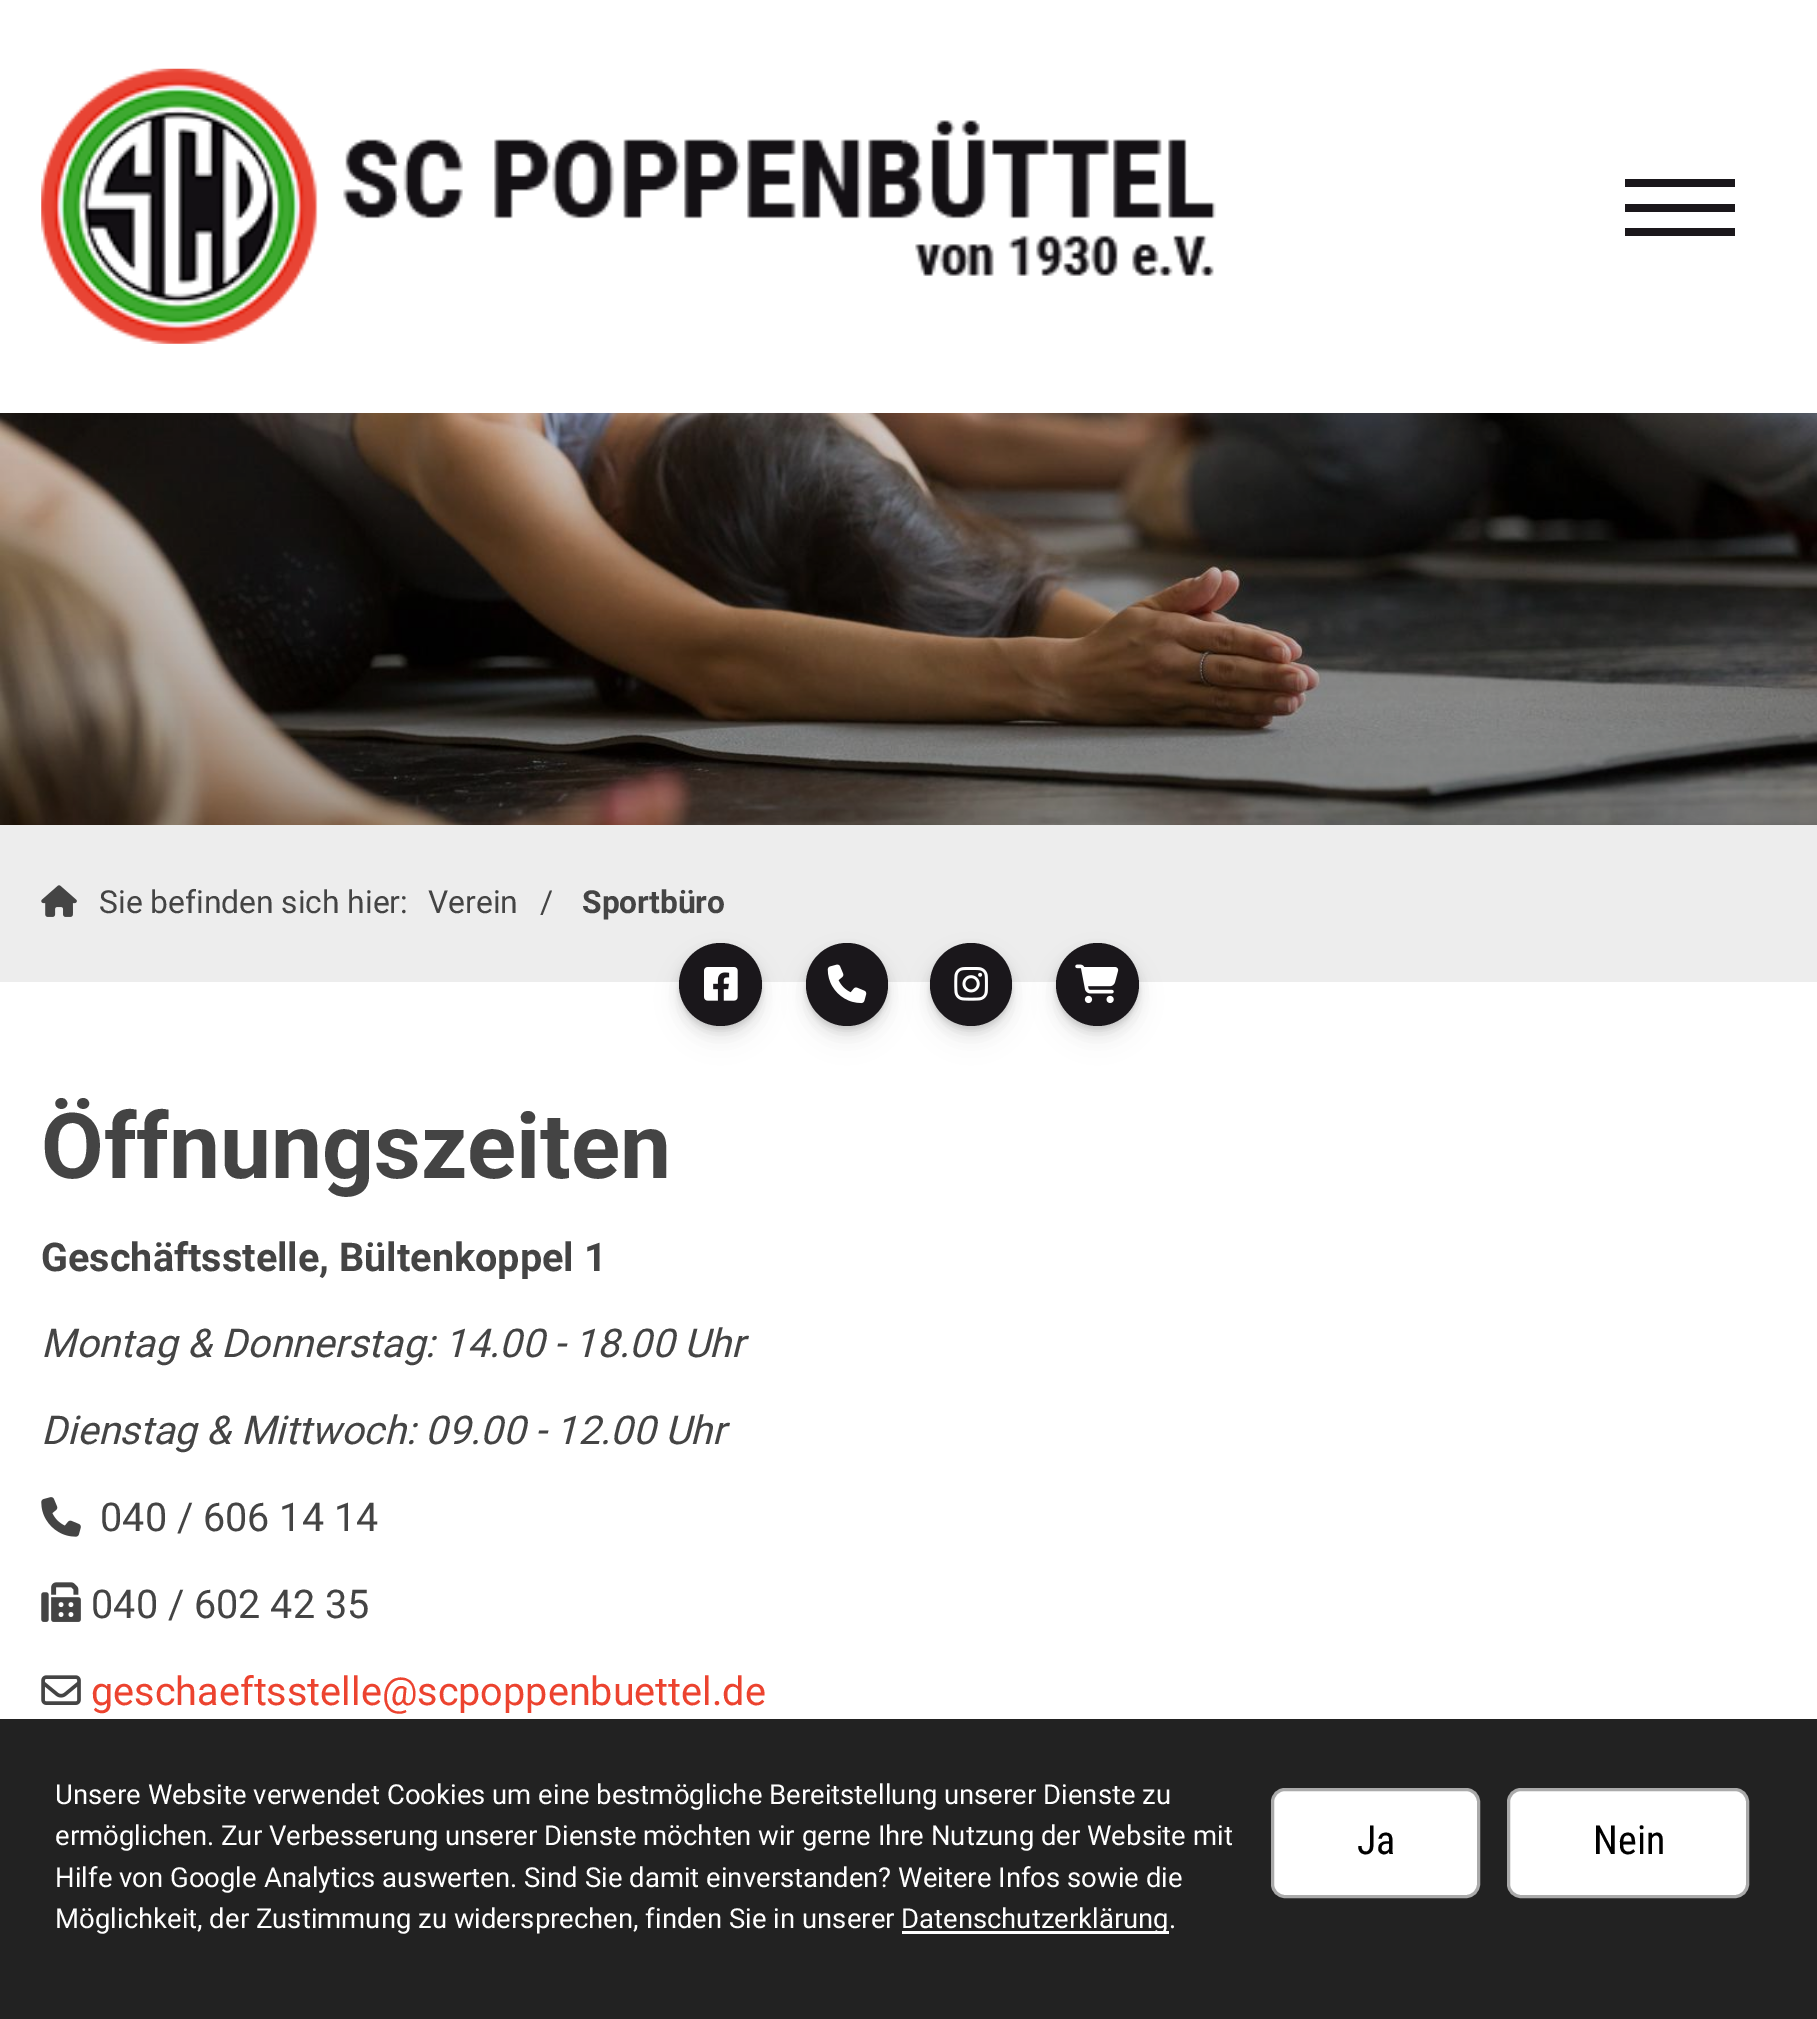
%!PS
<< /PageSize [1817 2019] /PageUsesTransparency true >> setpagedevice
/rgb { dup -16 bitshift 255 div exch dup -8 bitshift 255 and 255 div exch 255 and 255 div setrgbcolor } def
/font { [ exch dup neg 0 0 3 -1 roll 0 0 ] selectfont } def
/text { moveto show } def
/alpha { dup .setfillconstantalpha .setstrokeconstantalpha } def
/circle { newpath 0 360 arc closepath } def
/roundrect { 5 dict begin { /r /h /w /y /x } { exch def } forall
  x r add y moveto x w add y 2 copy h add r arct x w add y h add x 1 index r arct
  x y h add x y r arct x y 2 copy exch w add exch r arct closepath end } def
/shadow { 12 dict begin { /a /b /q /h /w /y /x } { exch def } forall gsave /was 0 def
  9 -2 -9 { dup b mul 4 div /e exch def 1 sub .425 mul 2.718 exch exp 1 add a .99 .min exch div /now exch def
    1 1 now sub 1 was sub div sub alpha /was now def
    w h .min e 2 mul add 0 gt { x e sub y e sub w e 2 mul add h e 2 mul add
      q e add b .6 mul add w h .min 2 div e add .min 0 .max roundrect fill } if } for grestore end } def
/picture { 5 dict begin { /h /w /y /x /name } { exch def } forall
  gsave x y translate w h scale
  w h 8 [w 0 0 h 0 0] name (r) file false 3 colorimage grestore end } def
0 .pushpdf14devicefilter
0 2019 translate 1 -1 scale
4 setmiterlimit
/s1 { /Roboto-Regular 31.75 font 16#444444 rgb } def
/s2 { /Roboto-Bold 31.75 font 16#444444 rgb } def
/s3 { /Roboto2-Bold 91 font 16#444444 rgb } def
/s4 { /Roboto-Bold 39.6 font 16#444444 rgb } def
/s5 { /Roboto-Italic 39.6 font 16#444444 rgb } def
/s6 { /Roboto-Regular 39.6 font 16#444444 rgb } def
/s7 { /Roboto-Regular 39.6 font 16#EC432F rgb } def
/s8 { /Roboto-Regular 27.5 font 16#FFFFFF rgb } def
/s9 { /RobotoCondensed-Regular 40 font 16#000000 rgb } def
16#EDEDED rgb
0 0 1817 2019 rectfill
16#FFFFFF rgb
0 0 1817 413 rectfill
(pic1.raw) 41 68 1175 276 picture
16#1A171B rgb
1625 204 110 8 rectfill
1625 179 110 8 rectfill
1625 228 110 8 rectfill
(pic2.raw) 0 413 1817 412 picture
(pic3.raw) 41 885 36 32 picture
s1
(Sie befinden sich hier:) 99 913 text
(Verein) 428 913 text
(/) 540 913 text
s2
(Sportbüro) 582 913 text
16#FFFFFF rgb
0 982 1817 737 rectfill
16#000000 rgb
679 957 83 83 41.5 14.5 0.06 shadow
679 952 83 82 41 8 0.06 shadow
679 949 83 82 41 4.5 0.07 shadow
679 946 83 83 41.5 2 0.05 shadow
16#1A171B rgb
720.5 984.5 41.5 circle fill
(pic4.raw) 704 967 34 34 picture
16#000000 rgb
806 957 82 83 41 14.5 0.06 shadow
806 952 82 82 41 8 0.06 shadow
806 949 82 82 41 4.5 0.07 shadow
806 946 82 83 41 2 0.05 shadow
16#1A171B rgb
806 943 82 83 41 roundrect fill
(pic5.raw) 827 964 40 40 picture
16#000000 rgb
930 957 82 83 41 14.5 0.06 shadow
930 952 82 82 41 8 0.06 shadow
930 949 82 82 41 4.5 0.07 shadow
930 946 82 83 41 2 0.05 shadow
16#1A171B rgb
930 943 82 83 41 roundrect fill
(pic6.raw) 954 967 34 34 picture
16#000000 rgb
1056 957 83 83 41.5 14.5 0.06 shadow
1056 952 83 82 41 8 0.06 shadow
1056 949 83 82 41 4.5 0.07 shadow
1056 946 83 83 41.5 2 0.05 shadow
16#1A171B rgb
1097.5 984.5 41.5 circle fill
(pic7.raw) 1075 964 44 40 picture
s3
(Öffnungszeiten) 41 1178 text
s4
(Geschäftsstelle, Bültenkoppel 1) 41 1271 text
s5
(Montag & Donnerstag: 14.00 - 18.00 Uhr) 41 1357 text
(Dienstag & Mittwoch: 09.00 - 12.00 Uhr) 41 1444 text
(pic8.raw) 41 1497 40 40 picture
s6
(040 / 606 14 14) 100 1531 text
(pic9.raw) 41 1582 40 40 picture
(040 / 602 42 35) 91 1618 text
(pic10.raw) 41 1675 40 30 picture
s7
(geschaeftsstelle@scpoppenbuettel.de) 91 1705 text
16#222222 rgb
0 1719 1817 300 rectfill
s8
(Unsere Website verwendet Cookies um eine bestmögliche Bereitstellung unserer Dienste zu) 55 1804 text
(ermöglichen. Zur Verbesserung unserer Dienste möchten wir gerne Ihre Nutzung der Website mit) 55 1845 text
(Hilfe von Google Analytics auswerten. Sind Sie damit einverstanden? Weitere Infos sowie die) 55 1887 text
(Möglichkeit, der Zustimmung zu widersprechen, finden Sie in unserer) 55 1928 text
902 1931 267 3 rectfill
(Datenschutzerklärung.) 901 1928 text
1272.5 1789.5 206 107 12.5 roundrect gsave fill grestore
16#AAAAAA rgb
3 setlinewidth
stroke
s9
(Ja) 1357 1854 text
16#FFFFFF rgb
1508.5 1789.5 239 107 12.5 roundrect gsave fill grestore
16#AAAAAA rgb
stroke
s9
(Nein) 1593 1854 text
.poppdf14devicefilter showpage
